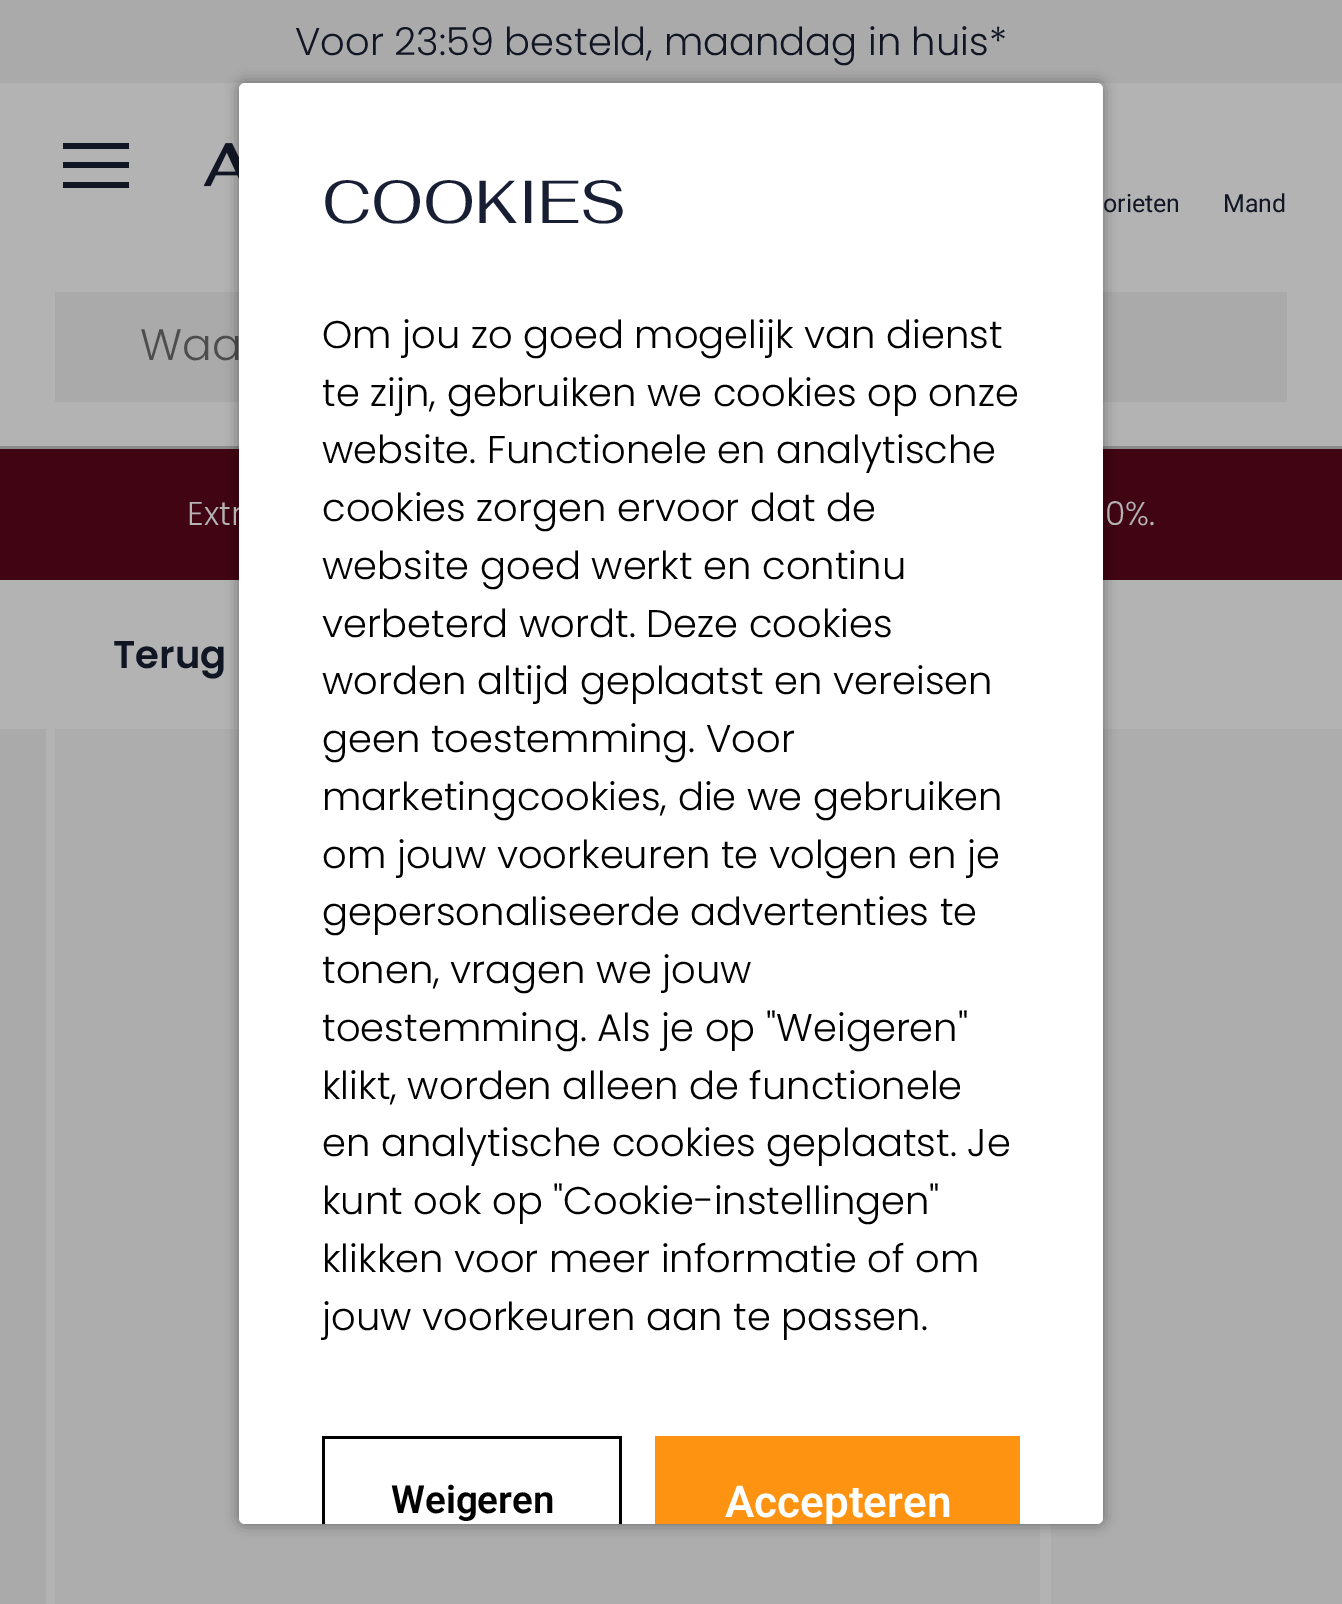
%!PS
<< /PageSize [1342 1604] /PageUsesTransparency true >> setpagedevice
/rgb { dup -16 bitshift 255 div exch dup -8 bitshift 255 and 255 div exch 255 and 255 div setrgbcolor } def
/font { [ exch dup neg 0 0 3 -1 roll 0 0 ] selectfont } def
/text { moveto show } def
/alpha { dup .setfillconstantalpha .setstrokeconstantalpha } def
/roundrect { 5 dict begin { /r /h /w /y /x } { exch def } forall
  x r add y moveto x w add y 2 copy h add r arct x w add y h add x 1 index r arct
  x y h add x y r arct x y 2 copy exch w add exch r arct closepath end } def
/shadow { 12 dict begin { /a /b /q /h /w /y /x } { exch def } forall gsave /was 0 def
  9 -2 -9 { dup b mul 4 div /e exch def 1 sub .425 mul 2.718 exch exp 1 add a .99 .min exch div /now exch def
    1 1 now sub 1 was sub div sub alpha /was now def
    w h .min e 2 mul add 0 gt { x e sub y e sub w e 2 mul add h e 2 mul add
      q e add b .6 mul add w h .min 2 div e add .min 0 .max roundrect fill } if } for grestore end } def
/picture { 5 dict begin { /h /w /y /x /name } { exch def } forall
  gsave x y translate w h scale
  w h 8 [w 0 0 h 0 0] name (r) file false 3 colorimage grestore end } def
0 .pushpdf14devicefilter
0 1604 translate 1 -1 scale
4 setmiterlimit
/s1 { /Poppins-Light 38.5 font 16#111624 rgb } def
/s2 { /Poppins-Light 44 font 16#4D4D4D rgb } def
/s3 { /Poppins-Light 33 font 16#B3B3B3 rgb } def
/s4 { /Fahkwang-Regular 60.5 font 16#181F34 rgb } def
/s5 { /Poppins-Light 38.5 font 16#000000 rgb } def
/s6 { /Roboto-SemiBold 38.5 font 16#000000 rgb } def
/s7 { /Roboto-SemiBold 44 font 16#FFFFFF rgb } def
/s8 { /Roboto-Regular 25 font 16#111624 rgb } def
/s9 { /Poppins-SemiBold 38.5 font 16#111624 rgb } def
16#B3B3B3 rgb
0 0 1342 1604 rectfill
16#AAAAAA rgb
0 0 1342 83 rectfill
s1
(Voor 23:59 besteld, maandag in huis*) 295 55 text
16#8B8B8B rgb
0 446 1342 3 rectfill
16#AAAAAA rgb
55 292 1232 110 rectfill
s2
(Waa) 140 360 text
16#111624 rgb
63 143 66 6 rectfill
63 162 66 6 rectfill
63 182 66 6 rectfill
(pic1.raw) 204 143 35 44 picture
16#410412 rgb
0 449 1342 131 rectfill
16#ADADAD rgb
55 729 985 875 rectfill
1051 729 291 875 rectfill
16#000000 rgb
239 83 864 1441 6 7 0.4 shadow
s3
(Extr) 187 525 text
16#FFFFFF rgb
239 83 864 1441 6 roundrect fill
s4
(COOKIES) 322 223 text
s5
(Om jou zo goed mogelijk van dienst) 322 348 text
(te zijn, gebruiken we cookies op onze) 322 406 text
(website. Functionele en analytische) 322 463 text
(cookies zorgen ervoor dat de) 322 521 text
(website goed werkt en continu) 322 579 text
(verbeterd wordt. Deze cookies) 322 637 text
(worden altijd geplaatst en vereisen) 322 694 text
(geen toestemming. Voor) 322 752 text
(marketingcookies, die we gebruiken) 322 810 text
(om jouw voorkeuren te volgen en je) 322 868 text
(gepersonaliseerde advertenties te) 322 925 text
(tonen, vragen we jouw) 322 983 text
(toestemming. Als je op "Weigeren") 322 1041 text
(klikt, worden alleen de functionele) 322 1099 text
(en analytische cookies geplaatst. Je) 322 1156 text
(kunt ook op "Cookie-instellingen") 322 1214 text
(klikken voor meer informatie of om) 322 1272 text
(jouw voorkeuren aan te passen.) 322 1330 text
322 1436 moveto 322 1524 lineto 325 1524 lineto 325 1439 lineto 619 1439 lineto 619 1524 lineto 622 1524 lineto 622 1436 lineto closepath fill
s6
(Weigeren) 391 1513 text
16#FE9311 rgb
655 1436 365 88 rectfill
gsave
239 83 864 1441 6 roundrect clip newpath
s7
(Accepteren) 725 1517 text
grestore
s8
(orieten) 1103 212 text
(Mand) 1223 212 text
s3
(0%.) 1105 525 text
s9
(Terug) 113 668 text
(pic2.raw) 0 729 46 875 picture
.poppdf14devicefilter showpage
